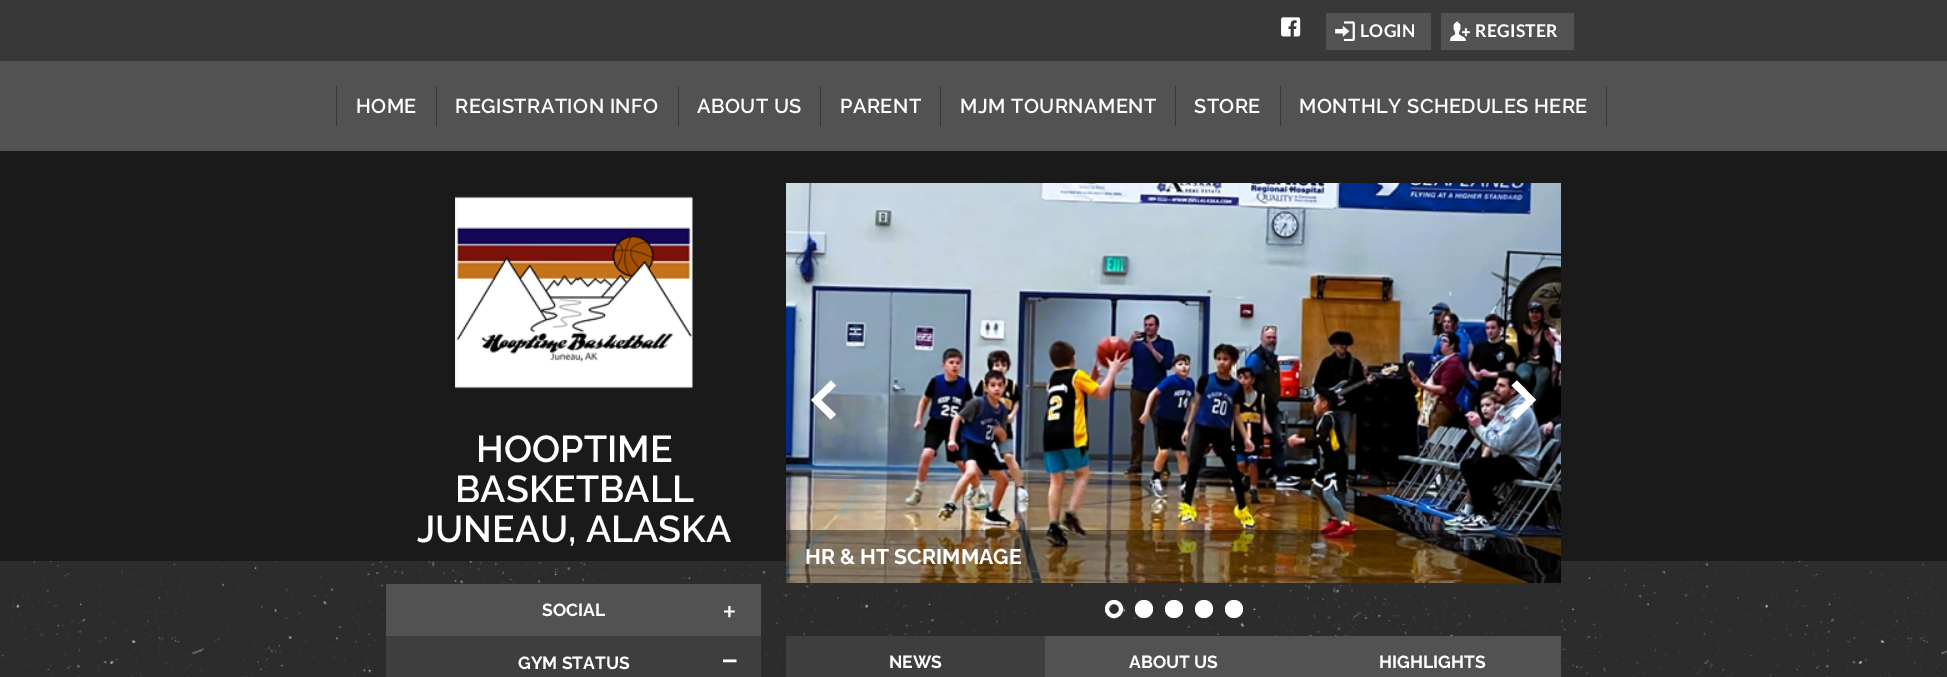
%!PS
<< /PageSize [1947 677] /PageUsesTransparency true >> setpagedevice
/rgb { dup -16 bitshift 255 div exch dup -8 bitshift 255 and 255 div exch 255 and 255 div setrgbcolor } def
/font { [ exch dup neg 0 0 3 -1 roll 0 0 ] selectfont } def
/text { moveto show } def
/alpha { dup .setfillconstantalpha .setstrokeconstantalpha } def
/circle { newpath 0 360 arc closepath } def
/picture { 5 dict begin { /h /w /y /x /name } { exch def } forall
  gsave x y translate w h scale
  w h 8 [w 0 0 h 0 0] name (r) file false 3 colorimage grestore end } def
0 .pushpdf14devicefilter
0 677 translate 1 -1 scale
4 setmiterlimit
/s1 { /Raleway-SemiBold 37.5 font 16#FFFFFF rgb } def
/s2 { /Raleway-Bold 21.25 font 16#FFFFFF rgb } def
/s3 { /Raleway-Bold 17.5 font 16#FFFFFF rgb } def
/s4 { /Lato-Bold 22 font 16#FFFFFF rgb } def
/s5 { /Exo-Bold 22 font 16#FFFFFF rgb } def
16#2C2C2C rgb
0 0 1947 677 rectfill
(pic1.raw) 1 561 1946 116 picture
16#383838 rgb
0 0 1947 61 rectfill
(pic2.raw) 1281 17 20 20 picture
16#525252 rgb
1326 13 105 37 rectfill
(pic3.raw) 1335 21 20 20 picture
/Lato-Bold 17.5 font
16#FFFFFF rgb
1360 37 moveto 0.25 0 (LOGIN) ashow
16#525252 rgb
1441 13 133 37 rectfill
(pic4.raw) 1450 21 20 20 picture
16#FFFFFF rgb
1475 37 moveto 0.25 0 (REGISTER) ashow
16#525252 rgb
0 61 1947 90 rectfill
16#383838 rgb
436 86 1 40 rectfill
336 86 1 40 rectfill
/Raleway-SemiBold 20 font
16#FFFFFF rgb
356 113 moveto 0.4 0 (HOME) ashow
16#383838 rgb
678 86 1 40 rectfill
16#FFFFFF rgb
455 113 moveto 0.4 0 (REGISTRATION INFO) ashow
16#383838 rgb
820 86 1 40 rectfill
16#FFFFFF rgb
697 113 moveto 0.4 0 (ABOUT US) ashow
16#383838 rgb
940 86 1 40 rectfill
16#FFFFFF rgb
840 113 moveto 0.4 0 (PARENT) ashow
16#383838 rgb
1175 86 1 40 rectfill
16#FFFFFF rgb
960 113 moveto 0.4 0 (MJM TOURNAMENT) ashow
16#383838 rgb
1280 86 1 40 rectfill
16#FFFFFF rgb
1194 113 moveto 0.4 0 (STORE) ashow
16#383838 rgb
1606 86 1 40 rectfill
16#FFFFFF rgb
1299 113 moveto 0.4 0 (MONTHLY SCHEDULES HERE) ashow
16#1A1A1A rgb
0 151 1947 410 rectfill
(pic5.raw) 455 196 238 193 picture
s1
(HOOPTIME) 476 462 text
(BASKETBALL) 455 502 text
(JUNEAU, ALASKA) 417 542 text
(pic6.raw) 786 183 775 400 picture
836 385.5 moveto 821 400 lineto 836 414.5 lineto 830.5 419.5 lineto 811 400 lineto 831 380.5 lineto closepath fill
1511 414.5 moveto 1526.5 400 lineto 1511.5 385.5 lineto 1517 380.5 lineto 1536 400 lineto 1516.5 419.5 lineto closepath fill
0.4 alpha
16#000000 rgb
786 530 775 53 rectfill
1 alpha
s2
(HR & HT SCRIMMAGE) 805 564 text
4 setlinewidth
1114 609 7 circle stroke
1144 609 9 circle fill
1174 609 9 circle fill
1204 609 9 circle fill
1234 609 9 circle fill
16#525252 rgb
386 584 375 52 rectfill
s3
(SOCIAL) 542 616 text
s4
(+) 723 619 text
16#3E3E3E rgb
386 636 375 41 rectfill
s3
(GYM STATUS) 518 669 text
s5
(_) 723 658 text
16#525252 rgb
1045 636 516 41 rectfill
16#3E3E3E rgb
786 636 259 41 rectfill
s3
(NEWS) 889 668 text
(ABOUT US) 1129 668 text
(HIGHLIGHTS) 1379 668 text
.poppdf14devicefilter showpage
